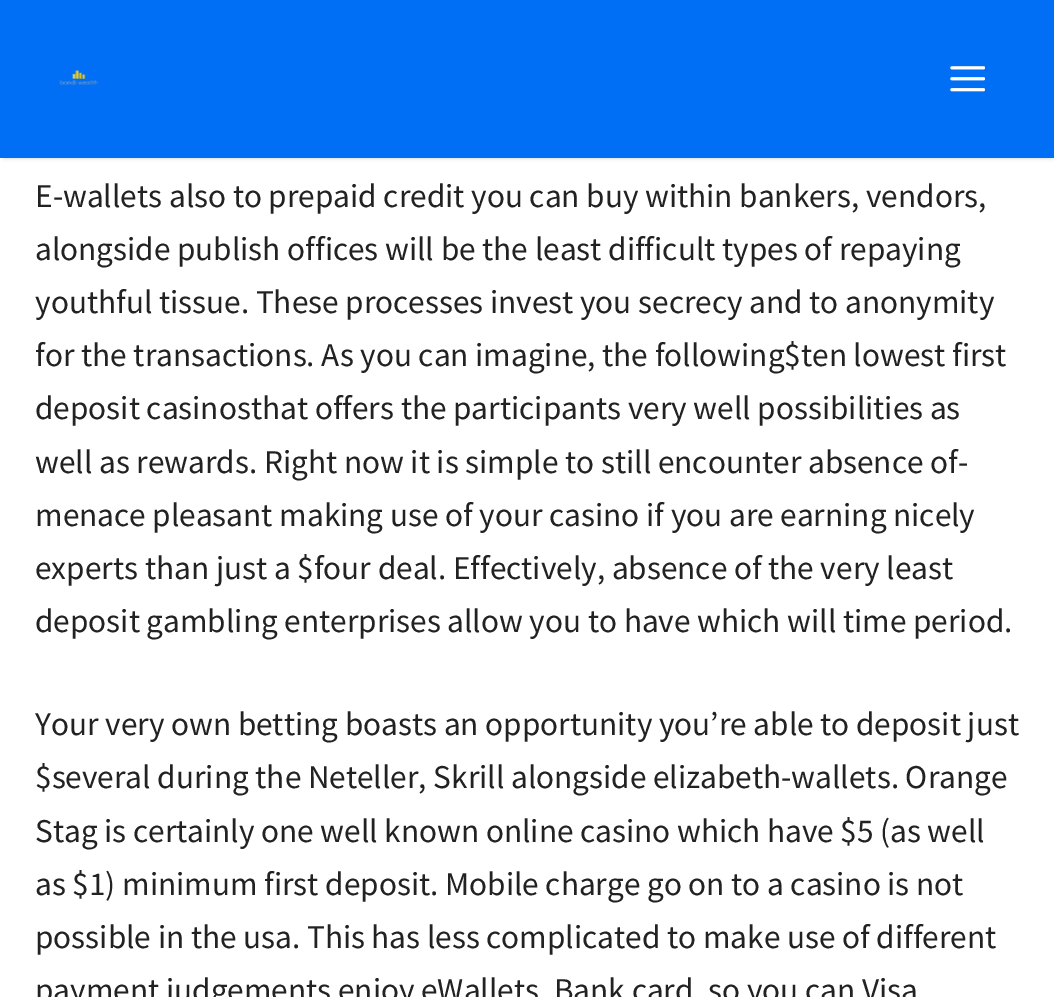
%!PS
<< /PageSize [1054 997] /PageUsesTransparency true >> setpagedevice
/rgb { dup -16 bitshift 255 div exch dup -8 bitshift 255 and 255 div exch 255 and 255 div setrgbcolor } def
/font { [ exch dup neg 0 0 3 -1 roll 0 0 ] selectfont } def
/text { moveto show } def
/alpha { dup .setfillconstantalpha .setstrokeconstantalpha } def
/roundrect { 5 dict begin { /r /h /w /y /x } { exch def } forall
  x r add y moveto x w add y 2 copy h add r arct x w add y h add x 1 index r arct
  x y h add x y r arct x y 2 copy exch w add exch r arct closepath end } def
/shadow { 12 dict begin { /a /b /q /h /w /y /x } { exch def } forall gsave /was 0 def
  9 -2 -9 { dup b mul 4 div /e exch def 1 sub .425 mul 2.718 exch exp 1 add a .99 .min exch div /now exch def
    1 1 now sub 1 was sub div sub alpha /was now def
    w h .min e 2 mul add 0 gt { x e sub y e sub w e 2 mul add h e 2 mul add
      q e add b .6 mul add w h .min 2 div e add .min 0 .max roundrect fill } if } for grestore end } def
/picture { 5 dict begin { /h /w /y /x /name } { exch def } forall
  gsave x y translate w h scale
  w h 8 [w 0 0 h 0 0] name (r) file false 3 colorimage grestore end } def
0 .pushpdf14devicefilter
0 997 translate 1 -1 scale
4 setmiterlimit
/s1 { /SourceSansPro-Regular 33.25 font 16#222222 rgb } def
16#FFFFFF rgb
0 0 1054 997 rectfill
16#000000 rgb
4 7 1048 151 0 2 0.2 shadow
16#006FF5 rgb
0 0 1054 158 rectfill
(pic1.raw) 59 70 39 15 picture
(pic2.raw) 950 66 35 26 picture
s1
(E-wallets also to prepaid credit you can buy within bankers, vendors,) 35 207 text
(alongside publish offices will be the least difficult types of repaying) 35 260 text
(youthful tissue. These processes invest you secrecy and to anonymity) 35 313 text
(for the transactions. As you can imagine, the following$ten lowest first) 35 366 text
(deposit casinosthat offers the participants very well possibilities as) 35 419 text
(well as rewards. Right now it is simple to still encounter absence of-) 35 473 text
(menace pleasant making use of your casino if you are earning nicely) 35 526 text
(experts than just a $four deal. Effectively, absence of the very least) 35 579 text
(deposit gambling enterprises allow you to have which will time period.) 35 632 text
(Your very own betting boasts an opportunity you’re able to deposit just) 35 735 text
($several during the Neteller, Skrill alongside elizabeth-wallets. Orange) 35 788 text
(Stag is certainly one well known online casino which have $5 \(as well) 35 842 text
(as $1\) minimum first deposit. Mobile charge go on to a casino is not) 35 895 text
(possible in the usa. This has less complicated to make use of different) 35 948 text
(payment judgements enjoy eWallets, Bank card, so you can Visa) 35 1001 text
.poppdf14devicefilter showpage
